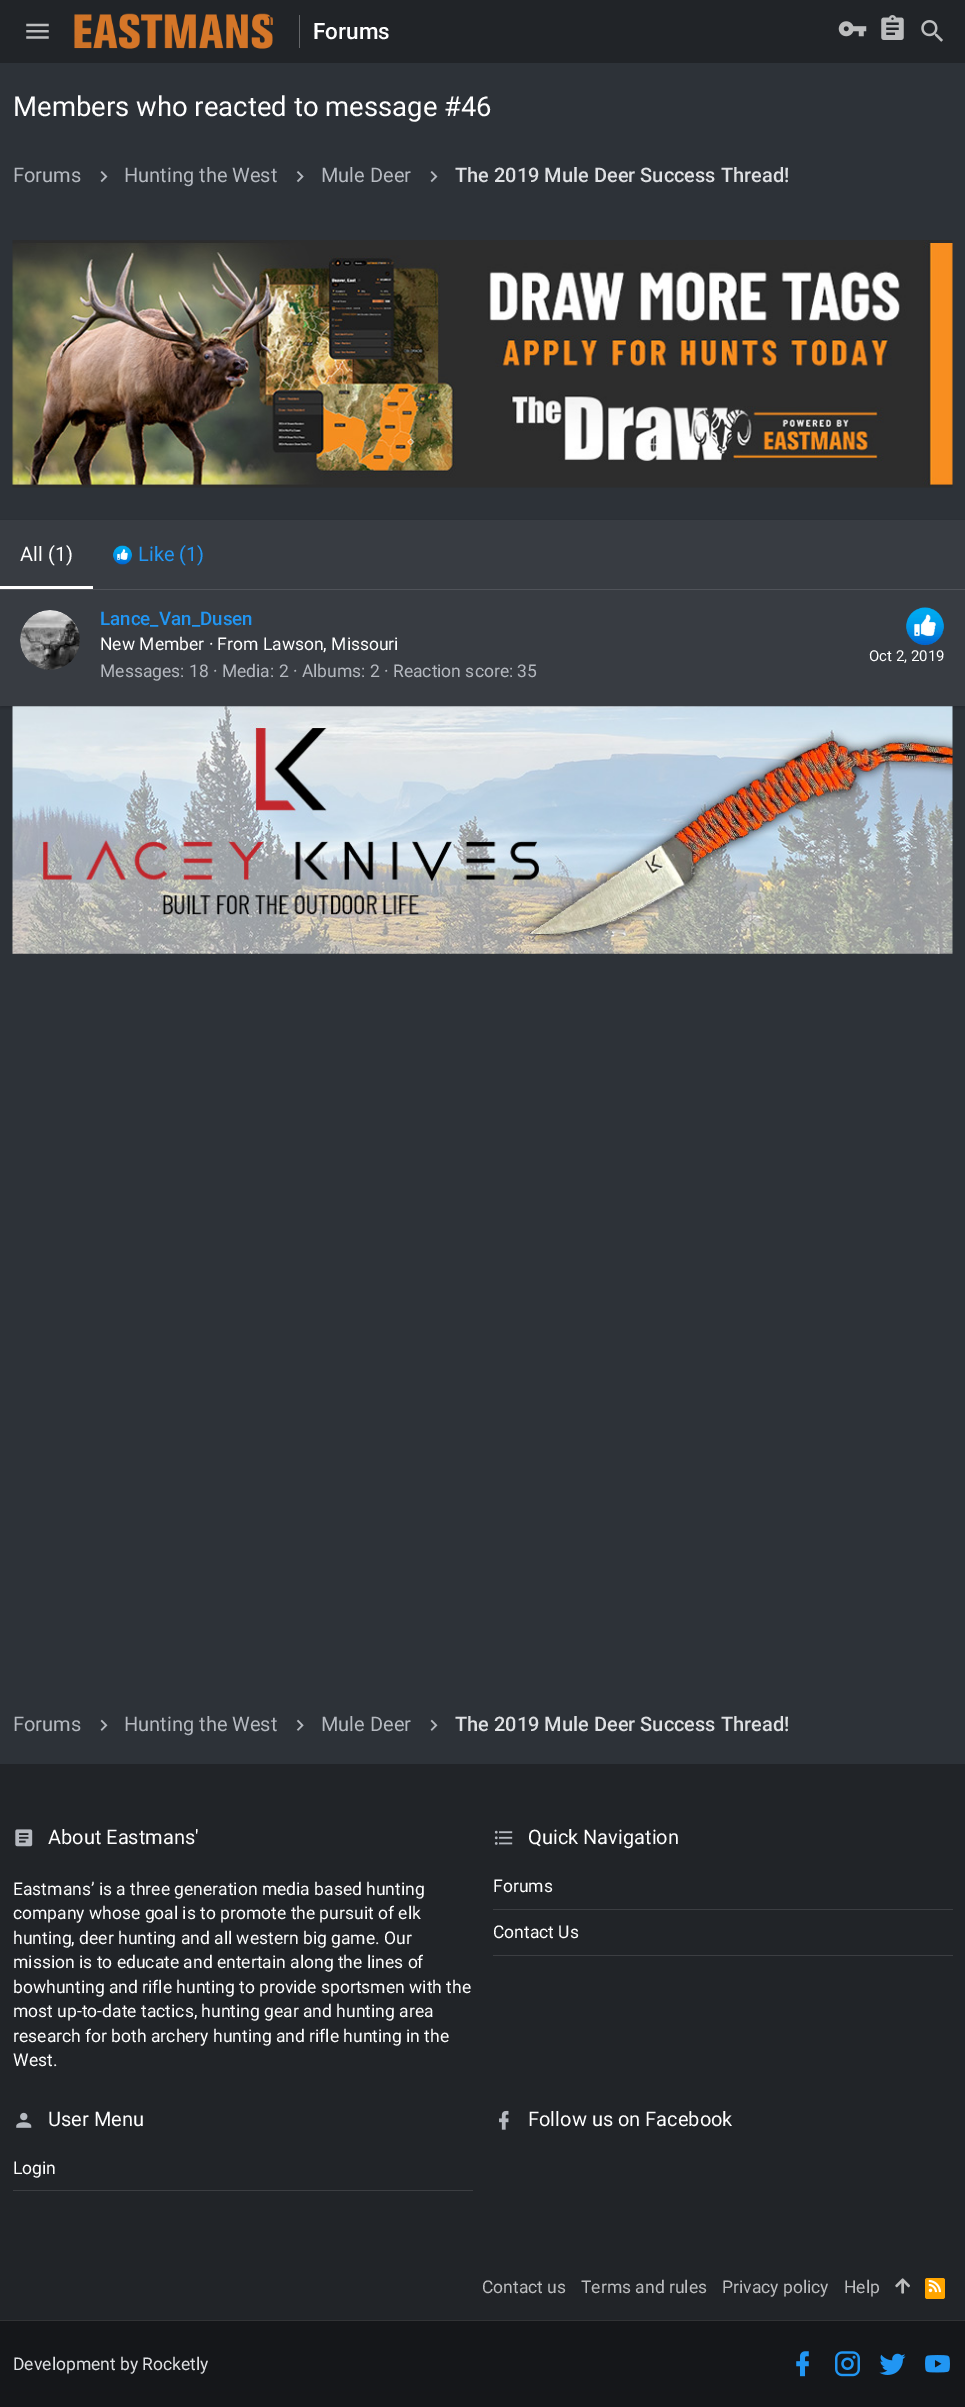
%!PS
<< /PageSize [965 2407] /PageUsesTransparency true >> setpagedevice
/rgb { dup -16 bitshift 255 div exch dup -8 bitshift 255 and 255 div exch 255 and 255 div setrgbcolor } def
/font { [ exch dup neg 0 0 3 -1 roll 0 0 ] selectfont } def
/text { moveto show } def
/alpha { dup .setfillconstantalpha .setstrokeconstantalpha } def
/roundrect { 5 dict begin { /r /h /w /y /x } { exch def } forall
  x r add y moveto x w add y 2 copy h add r arct x w add y h add x 1 index r arct
  x y h add x y r arct x y 2 copy exch w add exch r arct closepath end } def
/shadow { 12 dict begin { /a /b /q /h /w /y /x } { exch def } forall gsave /was 0 def
  9 -2 -9 { dup b mul 4 div /e exch def 1 sub .425 mul 2.718 exch exp 1 add a .99 .min exch div /now exch def
    1 1 now sub 1 was sub div sub alpha /was now def
    w h .min e 2 mul add 0 gt { x e sub y e sub w e 2 mul add h e 2 mul add
      q e add b .6 mul add w h .min 2 div e add .min 0 .max roundrect fill } if } for grestore end } def
/picture { 5 dict begin { /h /w /y /x /name } { exch def } forall
  gsave x y translate w h scale
  w h 8 [w 0 0 h 0 0] name (r) file false 3 colorimage grestore end } def
0 .pushpdf14devicefilter
0 2407 translate 1 -1 scale
4 setmiterlimit
/s1 { /Roboto-Medium 22.5 font 16#FFFFFF rgb } def
/s2 { /Roboto-Regular 27.5 font 16#FFFFFF rgb } def
/s3 { /Roboto-Regular 20 font 16#B5B9C0 rgb } def
/s4 { /Roboto-Medium 20 font 16#DEE0E3 rgb } def
/s5 { /Roboto-Regular 20 font 16#FFFFFF rgb } def
/s6 { /Roboto-Regular 20 font 16#2196F3 rgb } def
/s7 { /Roboto-Medium 18.75 font 16#2196F3 rgb } def
/s8 { /Roboto-Regular 17.5 font 16#FFFFFF rgb } def
/s9 { /Roboto-Regular 15 font 16#FFFFFF rgb } def
/s10 { /Roboto-Regular 17.5 font 16#B5B9C0 rgb } def
/s11 { /Roboto-Regular 17.5 font 16#BCBDBF rgb } def
/s12 { /Roboto-Regular 17.5 font 16#DEE0E3 rgb } def
16#2D3238 rgb
0 0 965 2407 rectfill
16#212428 rgb
0 0 965 63 rectfill
(pic1.raw) 26 23 23 16 picture
(pic2.raw) 74 13 199 36 picture
16#646669 rgb
299 15 1 33 rectfill
s1
(Forums) 313 39 text
(pic3.raw) 838 21 29 16 picture
(pic4.raw) 881 15 23 25 picture
(pic5.raw) 921 20 22 22 picture
s2
(Members who reacted to message #46) 13 116 text
s3
(Forums) 13 182 text
(pic6.raw) 100 171 8 12 picture
(Hunting the West) 124 182 text
(pic7.raw) 296 171 8 12 picture
(Mule Deer) 321 182 text
(pic6.raw) 430 171 8 12 picture
s4
(The 2019 Mule Deer Success Thread!) 455 182 text
(pic8.raw) 12 240 941 248 picture
16#000000 rgb
0 521 965 187 0 2 0.2 shadow
16#383C42 rgb
0 520 965 186 rectfill
16#505359 rgb
0 589 965 1 rectfill
16#FFFFFF rgb
0 586 93 3 rectfill
s5
(All \(1\)) 20 561 text
(pic9.raw) 113 545 19 20 picture
s6
(Like \(1\)) 138 561 text
(pic10.raw) 20 610 60 60 picture
s7
(Lance_Van_Dusen) 100 625 text
s8
(New Member · From Lawson, Missouri) 100 650 text
(pic11.raw) 906 607 38 39 picture
s9
(Oct 2, 2019) 869 661 text
s10
(Messages: 18 · Media: 2 · Albums: 2 · Reaction score: 35) 100 677 text
(pic12.raw) 12 706 941 248 picture
s3
(Forums) 13 1731 text
(pic13.raw) 100 1719 8 12 picture
(Hunting the West) 124 1731 text
(pic14.raw) 296 1719 8 12 picture
(Mule Deer) 321 1731 text
(pic13.raw) 430 1719 8 12 picture
s4
(The 2019 Mule Deer Success Thread!) 455 1731 text
16#212428 rgb
0 1764 965 556 rectfill
(pic15.raw) 15 1829 18 18 picture
s5
(About Eastmans') 48 1844 text
s8
(Eastmans’ is a three generation media based hunting) 13 1895 text
(company whose goal is to promote the pursuit of elk) 13 1919 text
(hunting, deer hunting and all western big game. Our) 13 1944 text
(mission is to educate and entertain along the lines of) 13 1968 text
(bowhunting and rifle hunting to provide sportsmen with the) 13 1993 text
(most up-to-date tactics, hunting gear and hunting area) 13 2017 text
(research for both archery hunting and rifle hunting in the) 13 2042 text
(West.) 13 2066 text
(pic16.raw) 494 1830 19 15 picture
s5
(Quick Navigation) 528 1844 text
16#3C3E42 rgb
493 1909 460 1 rectfill
s8
(Forums) 493 1892 text
16#3C3E42 rgb
493 1955 460 1 rectfill
s8
(Contact Us) 493 1938 text
(pic17.raw) 16 2112 16 16 picture
s5
(User Menu) 48 2126 text
16#3C3E42 rgb
13 2190 460 1 rectfill
s8
(Login) 13 2174 text
(pic18.raw) 499 2110 10 20 picture
s5
(Follow us on Facebook) 528 2126 text
s11
(Contact us) 482 2293 text
(Terms and rules) 581 2293 text
(Privacy policy) 722 2293 text
(Help) 844 2293 text
(pic19.raw) 895 2278 15 16 picture
16#FFA500 rgb
925 2278 20 21 2.5 roundrect fill
(pic20.raw) 928 2279 13 14 picture
16#15171A rgb
0 2321 965 86 rectfill
16#313335 rgb
0 2320 965 1 rectfill
s12
(Development by Rocketly) 13 2370 text
(pic21.raw) 796 2351 13 26 picture
(pic22.raw) 835 2351 25 26 picture
(pic23.raw) 879 2353 27 22 picture
(pic24.raw) 925 2355 25 18 picture
.poppdf14devicefilter showpage
